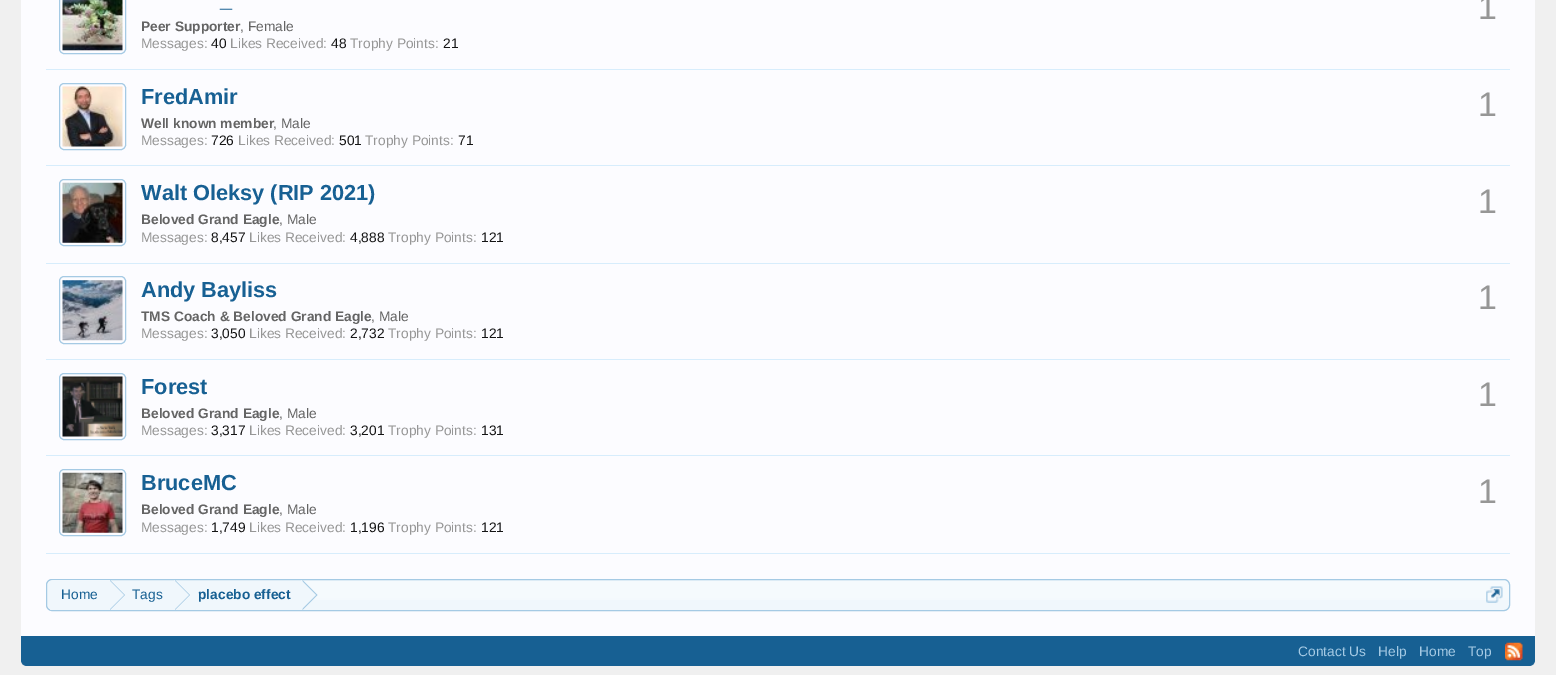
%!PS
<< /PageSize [1556 675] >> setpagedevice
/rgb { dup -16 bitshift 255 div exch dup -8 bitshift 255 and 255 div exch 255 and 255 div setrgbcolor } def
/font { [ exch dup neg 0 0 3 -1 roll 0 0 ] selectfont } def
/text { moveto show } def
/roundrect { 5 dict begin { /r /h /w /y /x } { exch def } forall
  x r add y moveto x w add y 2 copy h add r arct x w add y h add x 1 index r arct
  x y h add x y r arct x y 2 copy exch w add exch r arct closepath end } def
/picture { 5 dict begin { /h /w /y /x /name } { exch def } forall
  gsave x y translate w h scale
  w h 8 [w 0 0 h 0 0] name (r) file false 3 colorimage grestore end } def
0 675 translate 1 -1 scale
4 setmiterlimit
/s1 { /LiberationSans-Bold 21.75 font 16#176093 rgb } def
/s2 { /LiberationSans-Bold 13.75 font 16#646464 rgb } def
/s3 { /LiberationSans-Regular 13.75 font 16#646464 rgb } def
/s4 { /LiberationSans-Regular 13.75 font 16#969696 rgb } def
/s5 { /LiberationSans-Regular 13.75 font 16#141414 rgb } def
/s6 { /LiberationSans-Regular 34 font 16#969696 rgb } def
/s7 { /LiberationSans-Regular 13.75 font 16#176093 rgb } def
/s8 { /LiberationSans-Bold 13.75 font 16#176093 rgb } def
/s9 { /LiberationSans-Regular 13.75 font 16#A5CAE4 rgb } def
16#F0F0F0 rgb
0 0 1556 675 rectfill
16#FCFCFF rgb
21 0 1514 636 rectfill
16#D7EDFC rgb
46 69 1464 1 rectfill
(pic1.raw) 62 0 61 51 picture
16#A5CAE4 rgb
59.5 -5.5 66 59 4.5 roundrect stroke
s1
(_) 220 7 text
s2
(Peer Supporter) 141 31 text
s3
(, Female) 240 31 text
s4
(Messages:) 141 48 text
s5
(40) 211 48 text
s4
(Likes Received:) 230 48 text
s5
(48) 331 48 text
s4
(Trophy Points:) 350 48 text
s5
(21) 443 48 text
s6
(1) 1478 19 text
16#D7EDFC rgb
46 165 1464 1 rectfill
(pic2.raw) 62 86 61 61 picture
16#A5CAE4 rgb
59.5 83.5 66 66 4.5 roundrect stroke
s1
(FredAmir) 141 104 text
s2
(Well known member) 141 128 text
s3
(, Male) 273 128 text
s4
(Messages:) 141 145 text
s5
(726) 211 145 text
s4
(Likes Received:) 238 145 text
s5
(501) 339 145 text
s4
(Trophy Points:) 365 145 text
s5
(71) 458 145 text
s6
(1) 1478 116 text
16#D7EDFC rgb
46 263 1464 1 rectfill
(pic3.raw) 62 182 61 61 picture
16#A5CAE4 rgb
59.5 179.5 66 66 4.5 roundrect stroke
s1
(Walt Oleksy \(RIP 2021\)) 141 200 text
s2
(Beloved Grand Eagle) 141 224 text
s3
(, Male) 279 224 text
s4
(Messages:) 141 242 text
s5
(8,457) 211 242 text
s4
(Likes Received:) 249 242 text
s5
(4,888) 350 242 text
s4
(Trophy Points:) 388 242 text
s5
(121) 481 242 text
s6
(1) 1478 213 text
16#D7EDFC rgb
46 359 1464 1 rectfill
(pic4.raw) 62 280 61 61 picture
16#A5CAE4 rgb
59.5 276.5 66 67 4.5 roundrect stroke
s1
(Andy Bayliss) 141 297 text
s2
(TMS Coach & Beloved Grand Eagle) 141 321 text
s3
(, Male) 371 321 text
s4
(Messages:) 141 338 text
s5
(3,050) 211 338 text
s4
(Likes Received:) 249 338 text
s5
(2,732) 350 338 text
s4
(Trophy Points:) 388 338 text
s5
(121) 481 338 text
s6
(1) 1478 309 text
16#D7EDFC rgb
46 455 1464 1 rectfill
(pic5.raw) 62 376 61 61 picture
16#A5CAE4 rgb
59.5 373.5 66 66 4.5 roundrect stroke
s1
(Forest) 141 394 text
s2
(Beloved Grand Eagle) 141 418 text
s3
(, Male) 279 418 text
s4
(Messages:) 141 435 text
s5
(3,317) 211 435 text
s4
(Likes Received:) 249 435 text
s5
(3,201) 350 435 text
s4
(Trophy Points:) 388 435 text
s5
(131) 481 435 text
s6
(1) 1478 406 text
16#D7EDFC rgb
46 553 1464 1 rectfill
(pic6.raw) 62 472 61 61 picture
16#A5CAE4 rgb
59.5 469.5 66 66 4.5 roundrect stroke
s1
(BruceMC) 141 490 text
s2
(Beloved Grand Eagle) 141 514 text
s3
(, Male) 279 514 text
s4
(Messages:) 141 532 text
s5
(1,749) 211 532 text
s4
(Likes Received:) 249 532 text
s5
(1,196) 350 532 text
s4
(Trophy Points:) 388 532 text
s5
(121) 481 532 text
s6
(1) 1478 503 text
16#F0F7FC rgb
46 579 1464 32 6 roundrect fill
(pic7.raw) 47 581 1463 19 picture
16#A5CAE4 rgb
46.5 579.5 1463 31 5.5 roundrect stroke
gsave
48 580 1461 30 5 roundrect clip newpath
16#F0F7FC rgb
54 580 moveto 110 580 lineto 110 611 lineto 54 611 lineto 50.5 611 48 608.5 48 605 curveto 48 586 lineto 48 582.5 50.5 580 54 580 curveto closepath fill
grestore
s7
(Home) 61 599 text
16#F0F7FC rgb
110 581 193 19 rectfill
16#A5CAE4 rgb
110 610 moveto 110 580 lineto 125 595 lineto closepath fill
16#F0F7FC rgb
109 610 moveto 109 580 lineto 124 595 lineto closepath fill
s7
(Tags) 132 599 text
16#A5CAE4 rgb
175 610 moveto 175 580 lineto 190 595 lineto closepath fill
16#F0F7FC rgb
174 610 moveto 174 580 lineto 189 595 lineto closepath fill
s8
(placebo effect) 198 599 text
16#A5CAE4 rgb
302.5 610 moveto 302.5 580 lineto 317.5 595 lineto closepath fill
16#F0F7FC rgb
301 610 moveto 301 580 lineto 316 595 lineto closepath fill
(pic8.raw) 1486 586 17 17 picture
16#176093 rgb
21 636 moveto 1535 636 lineto 1535 660 lineto 1535 663.5 1532.5 666 1529 666 curveto 27 666 lineto 23.5 666 21 663.5 21 660 curveto closepath fill
s9
(Contact Us) 1298 656 text
(Help) 1378 656 text
(Home) 1419 656 text
(Top) 1468 656 text
(pic9.raw) 1505 642 18 19 picture
showpage
